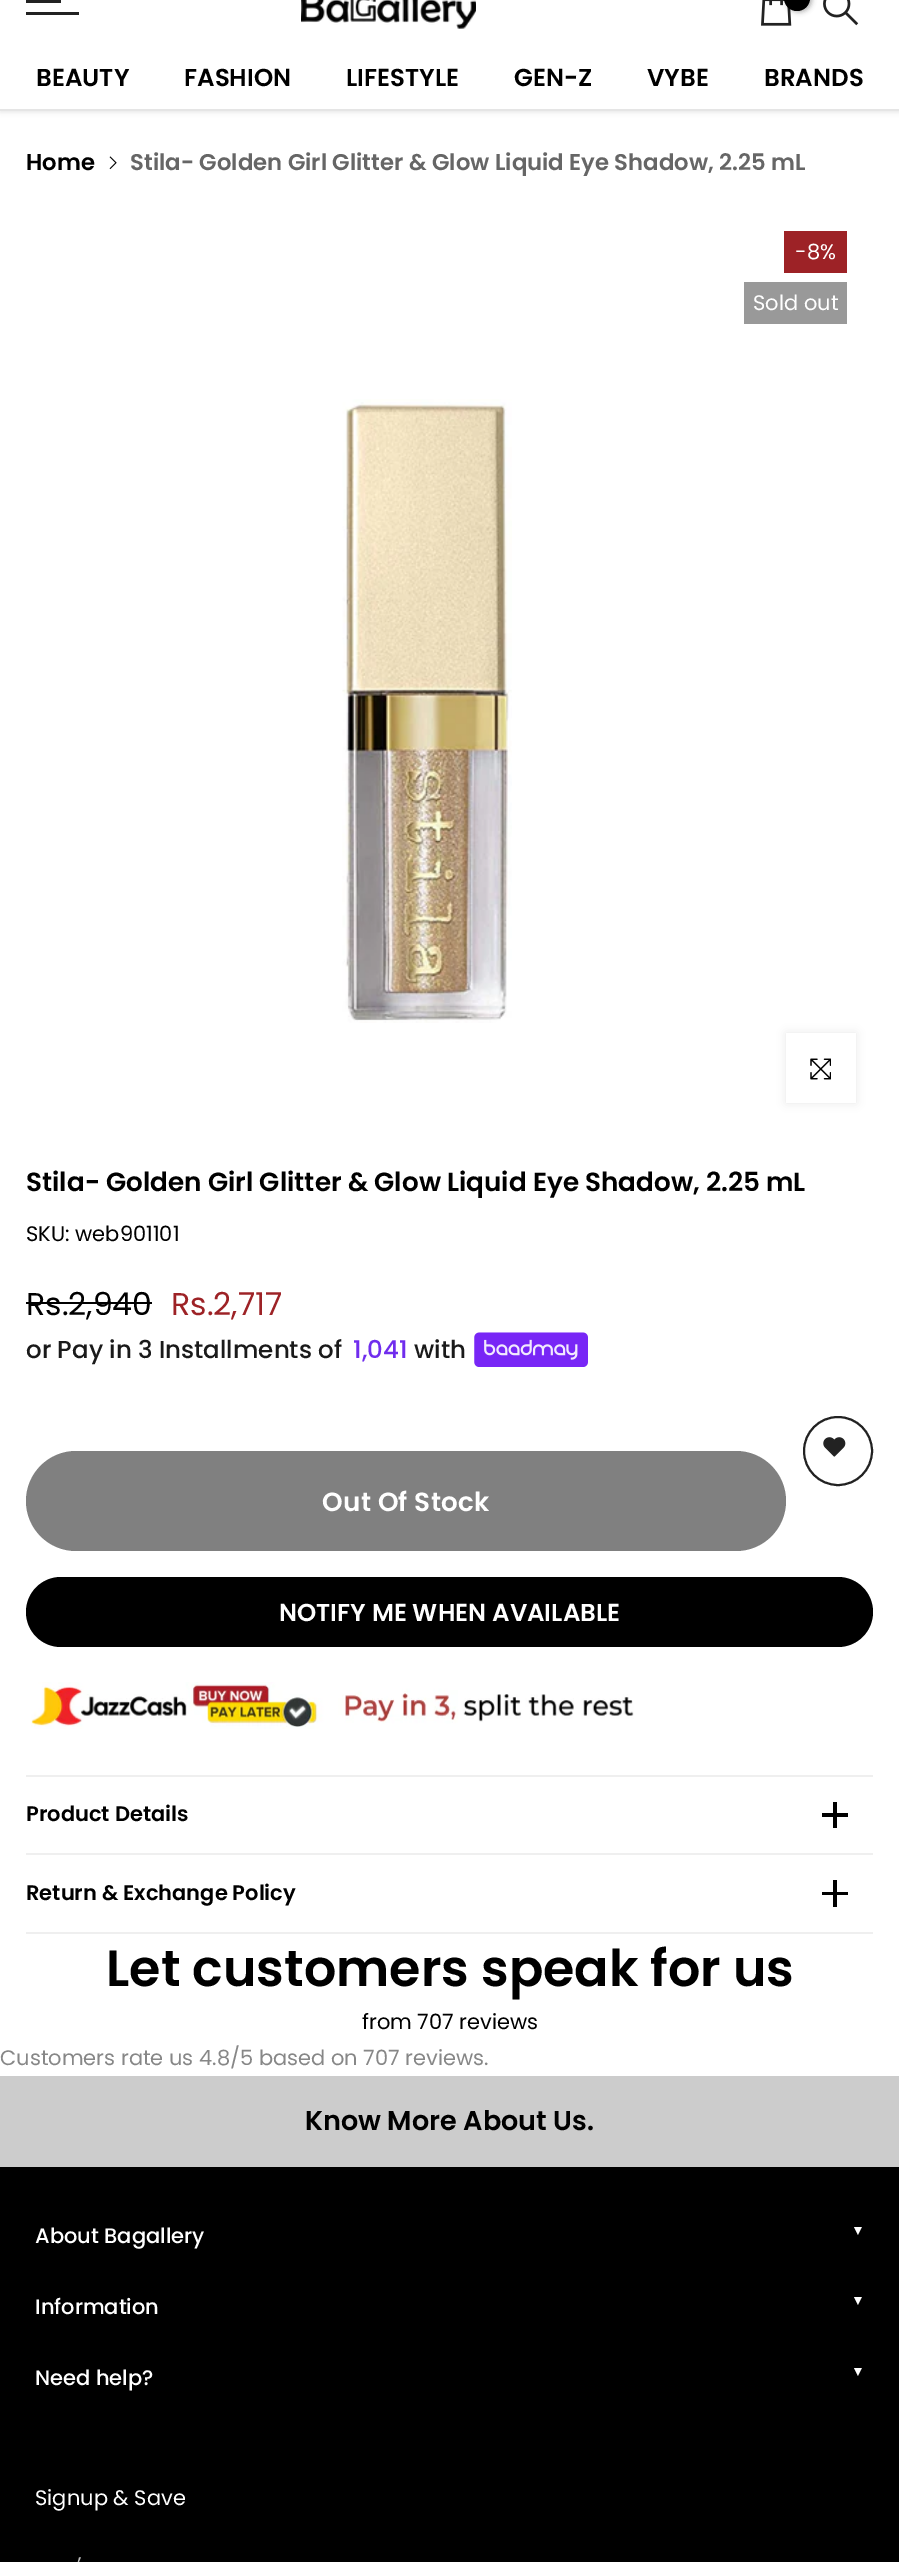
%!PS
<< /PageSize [899 2562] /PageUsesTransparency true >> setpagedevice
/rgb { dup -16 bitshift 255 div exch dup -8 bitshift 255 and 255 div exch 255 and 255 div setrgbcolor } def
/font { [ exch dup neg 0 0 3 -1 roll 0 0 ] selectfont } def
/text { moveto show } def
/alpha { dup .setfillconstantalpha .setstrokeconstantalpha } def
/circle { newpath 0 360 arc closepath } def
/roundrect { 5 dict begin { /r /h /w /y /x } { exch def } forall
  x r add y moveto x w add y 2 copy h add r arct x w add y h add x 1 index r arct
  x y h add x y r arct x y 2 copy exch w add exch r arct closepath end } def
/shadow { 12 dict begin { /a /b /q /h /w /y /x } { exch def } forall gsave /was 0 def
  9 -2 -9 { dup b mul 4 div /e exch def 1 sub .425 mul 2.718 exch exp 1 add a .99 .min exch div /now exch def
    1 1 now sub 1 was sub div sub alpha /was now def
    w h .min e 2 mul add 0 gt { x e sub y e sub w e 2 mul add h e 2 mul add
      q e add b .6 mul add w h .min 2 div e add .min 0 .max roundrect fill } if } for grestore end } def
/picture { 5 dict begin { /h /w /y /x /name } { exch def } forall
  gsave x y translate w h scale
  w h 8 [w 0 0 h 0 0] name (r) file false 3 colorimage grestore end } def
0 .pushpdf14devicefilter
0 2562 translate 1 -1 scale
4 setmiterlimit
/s1 { /Poppins-SemiBold 24.5 font 16#000000 rgb } def
/s2 { /Poppins-SemiBold 22.75 font 16#000000 rgb } def
/s3 { /Poppins-SemiBold 22.75 font 16#666666 rgb } def
/s4 { /Poppins-Regular 21 font 16#FFFFFF rgb } def
/s5 { /Poppins-SemiBold 26.25 font 16#000000 rgb } def
/s6 { /Poppins-Regular 21 font 16#000000 rgb } def
/s7 { /Poppins-Regular 31.5 font 16#000000 rgb } def
/s8 { /Poppins-Regular 31.5 font 16#9D2226 rgb } def
/s9 { /Poppins-Medium 24.5 font 16#1A1A1A rgb } def
/s10 { /Poppins-Medium 24.5 font 16#702DED rgb } def
/s11 { /Poppins-SemiBold 24.5 font 16#FFFFFF rgb } def
/s12 { /Poppins-SemiBold 21 font 16#000000 rgb } def
/s13 { /Poppins-SemiBold 50.75 font 16#000000 rgb } def
/s14 { /Poppins-Regular 21 font 16#878787 rgb } def
/s15 { /Poppins-SemiBold 27.1 font 16#000000 rgb } def
/s16 { /Poppins-Medium 21 font 16#FFFFFF rgb } def
/s17 { /LiberationSerif-Regular 14 font 16#FFFFFF rgb } def
/s18 { /Poppins-Regular 21 font 16#BFBFBF rgb } def
16#FFFFFF rgb
0 0 899 2562 rectfill
16#000000 rgb
0 -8 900 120 0 2.5 0.1 shadow
16#FFFFFF rgb
0 0 899 109 rectfill
16#E5E5E5 rgb
0 109 899 2 rectfill
16#222222 rgb
26 0 35 3 rectfill
26 12 53 3 rectfill
(pic1.raw) 301 0 175 29 picture
(pic2.raw) 761 0 31 26 picture
16#000000 rgb
786 -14 26 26 13 2.5 0.3 shadow
784 -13 26 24 13 roundrect fill
(pic3.raw) 823 0 36 26 picture
s1
(BEAUTY) 36 86 text
(FASHION) 184 86 text
(LIFESTYLE) 346 86 text
(GEN-Z) 514 86 text
(VYBE) 647 86 text
(BRANDS) 764 86 text
s2
(Home) 26 170 text
(pic4.raw) 109 156 8 14 picture
s3
(Stila- Golden Girl Glitter & Glow Liquid Eye Shadow, 2.25 mL) 130 170 text
16#9D2226 rgb
784 231 63 42 rectfill
s4
(-8%) 795 259 text
16#999999 rgb
744 282 103 42 rectfill
s4
(Sold out) 753 310 text
(pic5.raw) 342 399 170 624 picture
16#000000 rgb
786 1033 70 70 0 4.5 0.09 shadow
16#FFFFFF rgb
786 1033 70 70 rectfill
(pic6.raw) 810 1058 21 22 picture
s5
(Stila- Golden Girl Glitter & Glow Liquid Eye Shadow, 2.25 mL) 26 1191 text
s6
(SKU: web901101) 26 1241 text
s7
(Rs.2,940) 26 1315 text
26 1302 126 2 rectfill
s8
(Rs.2,717) 171 1315 text
s9
(or Pay in 3 Installments of) 26 1358 text
s10
(1,041) 353 1358 text
s9
(with) 414 1358 text
(pic7.raw) 474 1332 114 35 picture
16#222222 rgb
2 setlinewidth
838 1451 34 circle stroke
(pic8.raw) 823 1437 23 20 picture
16#808080 rgb
26 1451 760 100 50 roundrect fill
/Poppins-SemiBold 26.25 font
16#FFFFFF rgb
322 1511 moveto 0.3 0 (Out Of Stock) ashow
16#000000 rgb
26 1577 847 70 35 roundrect fill
s11
(NOTIFY ME WHEN AVAILABLE) 279 1621 text
(pic9.raw) 31 1682 603 47 picture
16#EFEFEF rgb
26 1775 847 2 rectfill
26 1853 847 2 rectfill
s12
(Product Details) 26 1821 text
833 1802 4 26 rectfill
822 1813 26 4 rectfill
16#EFEFEF rgb
26 1932 847 2 rectfill
s12
(Return & Exchange Policy) 26 1900 text
833 1880 4 27 rectfill
822 1892 26 3 rectfill
s13
(Let customers speak for us) 106 1986 text
s6
(from 707 reviews) 362 2029 text
s14
(Customers rate us 4.8/5 based on 707 reviews.) 0 2065 text
16#CCCCCC rgb
0 2076 899 91 rectfill
s15
(Know More About Us.) 305 2130 text
0 2167 899 395 rectfill
s16
(About Bagallery) 35 2243 text
s17
(▼) 851 2235 text
s16
(Information) 35 2314 text
s17
(▼) 851 2305 text
s16
(Need help?) 35 2385 text
s17
(▼) 851 2376 text
s4
(Signup & Save) 35 2505 text
s18
(’) 77 2572 text
.poppdf14devicefilter showpage
